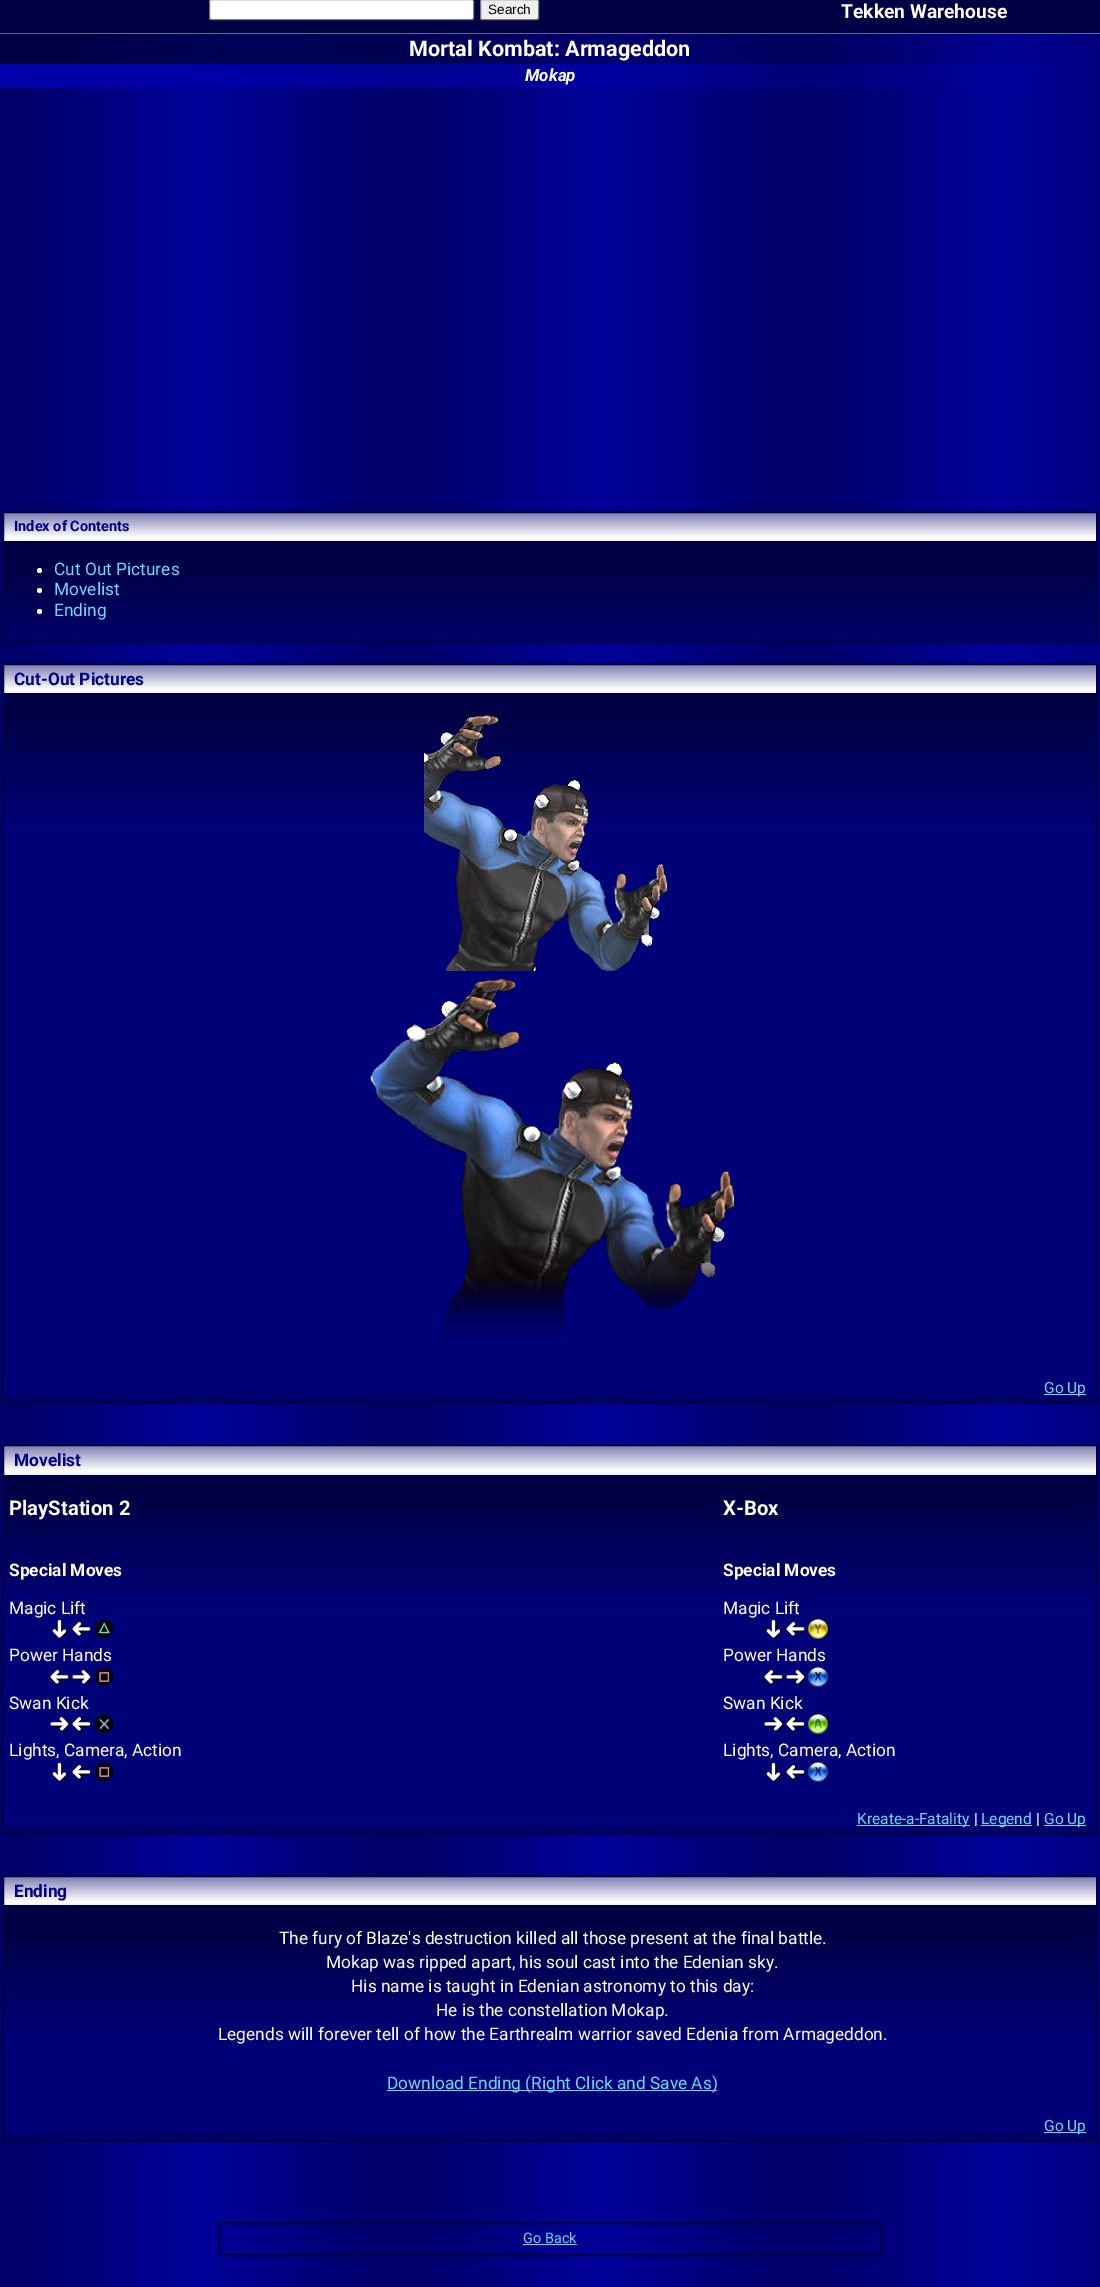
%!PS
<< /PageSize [1100 2287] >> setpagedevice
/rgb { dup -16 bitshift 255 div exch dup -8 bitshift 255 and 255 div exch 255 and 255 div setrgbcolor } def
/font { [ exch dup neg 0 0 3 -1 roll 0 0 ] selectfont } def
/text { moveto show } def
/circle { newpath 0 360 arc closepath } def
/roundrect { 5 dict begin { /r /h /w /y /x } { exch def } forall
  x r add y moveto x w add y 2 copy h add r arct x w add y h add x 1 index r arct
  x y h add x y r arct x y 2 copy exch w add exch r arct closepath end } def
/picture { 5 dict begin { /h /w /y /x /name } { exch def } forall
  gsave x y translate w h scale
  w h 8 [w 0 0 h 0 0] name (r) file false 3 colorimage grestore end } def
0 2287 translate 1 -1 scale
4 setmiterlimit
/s1 { /LiberationSans-Regular 13.5 font 16#000000 rgb } def
/s2 { /Roboto-Bold 19.25 font 16#FFFFFF rgb } def
/s3 { /Roboto-Bold 21.6 font 16#FFFFFF rgb } def
/s4 { /Roboto-BoldItalic 17 font 16#FFFFFF rgb } def
/s5 { /Roboto-Bold 14.5 font 16#000088 rgb } def
/s6 { /Roboto-Regular 17.3 font 16#66DDFF rgb } def
/s7 { /Roboto-Bold 17.3 font 16#000088 rgb } def
/s8 { /Roboto-Regular 15.5 font 16#66DDFF rgb } def
/s9 { /Roboto-Bold 20.25 font 16#FFFFFF rgb } def
/s10 { /Roboto-Bold 17.3 font 16#FFFFFF rgb } def
/s11 { /Roboto-Regular 17.3 font 16#FFFFFF rgb } def
/s12 { /Roboto-Regular 15.5 font 16#FFFFFF rgb } def
/s13 { /Roboto-Regular 14.5 font 16#66DDFF rgb } def
16#FFFFFF rgb
0 0 1100 2287 rectfill
(pic1.raw) 0 34 1100 2253 picture
16#666699 rgb
0 33 1100 1 rectfill
16#000044 rgb
0 0 1100 33 rectfill
16#FFFFFF rgb
209.5 -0.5 264 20 1.5 roundrect gsave fill grestore
16#767676 rgb
stroke
16#EFEFEF rgb
480.5 -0.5 58 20 1.5 roundrect gsave fill grestore
16#767676 rgb
stroke
s1
(Search) 488 14 text
s2
(Tekken Warehouse) 841 18 text
s3
(Mortal Kombat: Armageddon) 409 56 text
s4
(Mokap) 525 81 text
(pic2.raw) 4 513 1092 28 picture
16#000044 rgb
2 setlinewidth
3 512 1094 30 rectstroke
s5
(Index of Contents) 14 531 text
(pic3.raw) 4 543 1092 98 picture
16#000044 rgb
1096 543 2 100 rectfill
2 641 1096 2 rectfill
2 543 2 100 rectfill
16#FFFFFF rgb
39.5 570.5 2.5 circle fill
s6
(Cut Out Pictures) 54 575 text
16#FFFFFF rgb
39.5 590.5 2.5 circle fill
s6
(Movelist) 54 595 text
16#FFFFFF rgb
39.5 611.5 2.5 circle fill
s6
(Ending) 54 616 text
(pic2.raw) 4 665 1092 28 picture
16#000044 rgb
3 664 1094 30 rectstroke
s7
(Cut-Out Pictures) 14 685 text
16#000077 rgb
4 826 1092 549 rectfill
(pic4.raw) 4 695 1092 131 picture
16#000044 rgb
1096 695 2 709 rectfill
2 695 2 680 rectfill
(pic5.raw) 424 715 243 256 picture
(pic6.raw) 370 979 365 361 picture
(pic7.raw) 4 1375 1092 27 picture
2 1402 1096 2 rectfill
2 1375 2 29 rectfill
16#66DDFF rgb
1044 1394 42 1 rectfill
s8
(Go Up) 1044 1393 text
(pic8.raw) 4 1446 1092 29 picture
16#000044 rgb
3 1445 1094 31 rectstroke
s7
(Movelist) 14 1466 text
16#000077 rgb
4 1608 1092 198 rectfill
(pic4.raw) 4 1477 1092 131 picture
16#000044 rgb
1096 1477 2 358 rectfill
2 1477 2 329 rectfill
s9
(PlayStation 2) 9 1515 text
(X-Box) 723 1515 text
s10
(Special Moves) 723 1576 text
s11
(Magic Lift) 723 1614 text
(pic9.raw) 766 1619 17 20 picture
(pic10.raw) 786 1622 20 15 picture
(pic11.raw) 808 1619 20 20 picture
(Power Hands) 723 1661 text
(pic10.raw) 764 1670 20 15 picture
(pic12.raw) 786 1670 20 15 picture
(pic13.raw) 808 1667 20 20 picture
(Swan Kick) 723 1709 text
(pic12.raw) 764 1717 20 15 picture
(pic10.raw) 786 1717 20 15 picture
(pic14.raw) 808 1714 20 20 picture
(Lights, Camera, Action) 723 1756 text
(pic9.raw) 766 1762 17 20 picture
(pic10.raw) 786 1765 20 15 picture
(pic13.raw) 808 1762 20 20 picture
s10
(Special Moves) 9 1576 text
s11
(Magic Lift) 9 1614 text
(pic9.raw) 52 1619 17 20 picture
(pic10.raw) 72 1622 20 15 picture
(pic15.raw) 95 1619 19 19 picture
(Power Hands) 9 1661 text
(pic10.raw) 50 1670 20 15 picture
(pic12.raw) 72 1670 20 15 picture
(pic16.raw) 95 1667 19 19 picture
(Swan Kick) 9 1709 text
(pic12.raw) 50 1717 20 15 picture
(pic10.raw) 72 1717 20 15 picture
(pic17.raw) 95 1714 19 19 picture
(Lights, Camera, Action) 9 1756 text
(pic9.raw) 52 1762 17 20 picture
(pic10.raw) 72 1765 20 15 picture
(pic16.raw) 95 1762 19 19 picture
(pic7.raw) 4 1806 1092 27 picture
16#000044 rgb
2 1833 1096 2 rectfill
2 1806 2 29 rectfill
16#66DDFF rgb
857 1825 113 1 rectfill
s8
(Kreate-a-Fatality) 857 1824 text
s12
(|) 974 1824 text
16#66DDFF rgb
981 1825 51 1 rectfill
(Legend) 981 1824 text
s12
(|) 1036 1824 text
16#66DDFF rgb
1044 1825 42 1 rectfill
(Go Up) 1044 1824 text
(pic2.raw) 4 1877 1092 28 picture
16#000044 rgb
3 1876 1094 30 rectstroke
s7
(Ending) 14 1897 text
16#000077 rgb
4 2038 1092 75 rectfill
(pic4.raw) 4 1907 1092 131 picture
16#000044 rgb
1096 1907 2 235 rectfill
2 1907 2 206 rectfill
s11
(The fury of Blaze's destruction killed all those present at the final battle.) 279 1944 text
(Mokap was ripped apart, his soul cast into the Edenian sky.) 326 1968 text
(His name is taught in Edenian astronomy to this day:) 351 1992 text
(He is the constellation Mokap.) 436 2016 text
(Legends will forever tell of how the Earthrealm warrior saved Edenia from Armageddon.) 218 2040 text
16#66DDFF rgb
387 2090 330 1 rectfill
(Download Ending \(Right Click and Save As\)) 387 2089 text
(pic7.raw) 4 2113 1092 27 picture
16#000044 rgb
2 2140 1096 2 rectfill
2 2113 2 29 rectfill
16#66DDFF rgb
1044 2132 42 1 rectfill
s8
(Go Up) 1044 2131 text
16#000044 rgb
219 2223 662 32 rectstroke
s13
(Go Back) 523 2243 text
523 2244 54 1 rectfill
showpage
